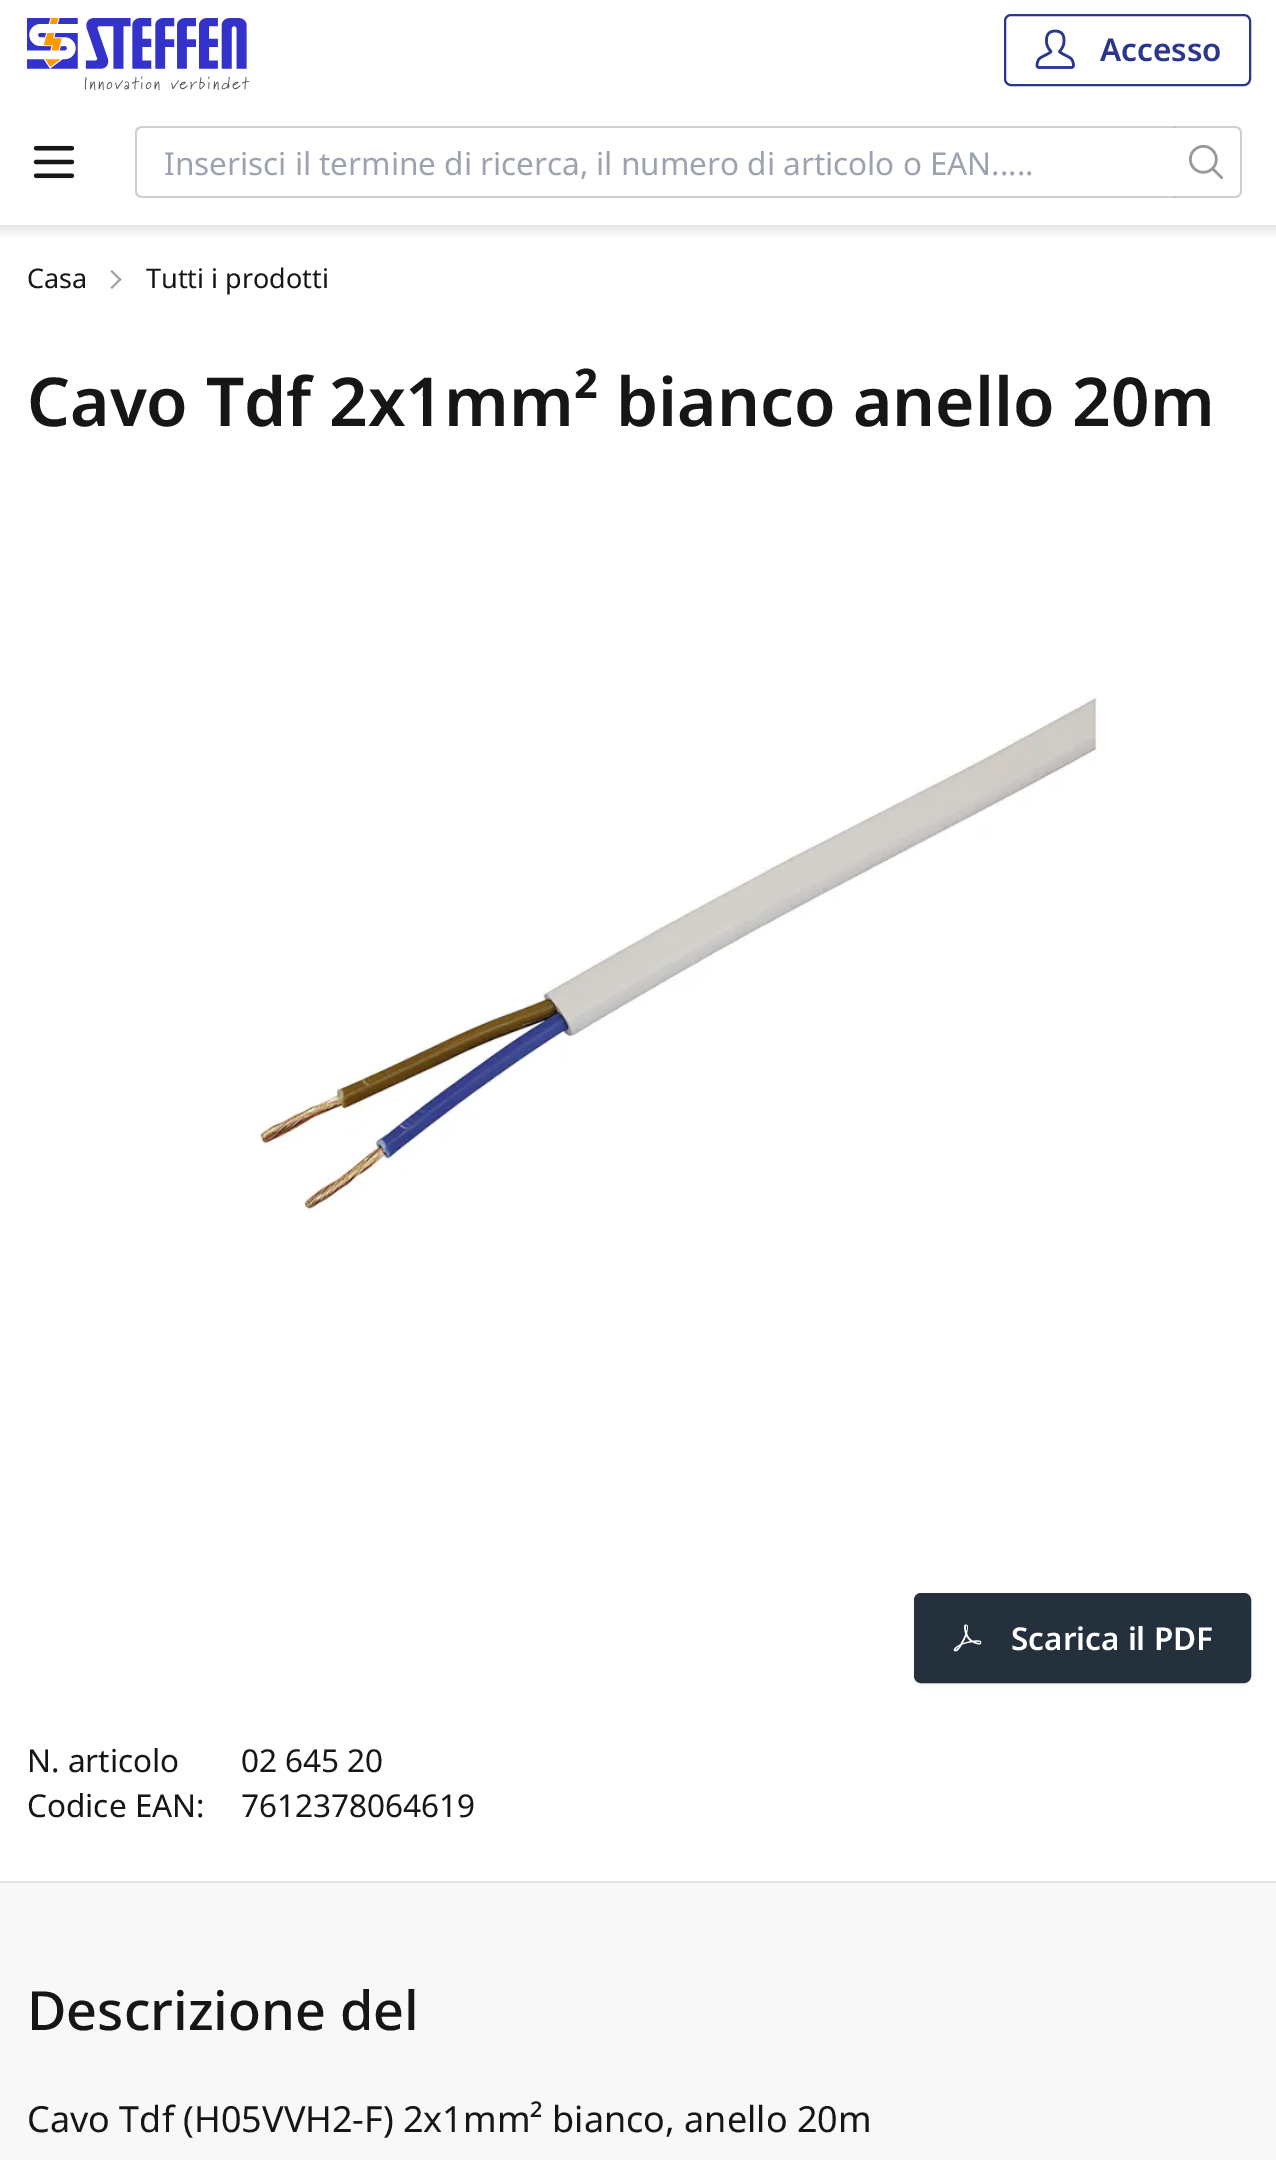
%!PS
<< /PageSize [1276 2160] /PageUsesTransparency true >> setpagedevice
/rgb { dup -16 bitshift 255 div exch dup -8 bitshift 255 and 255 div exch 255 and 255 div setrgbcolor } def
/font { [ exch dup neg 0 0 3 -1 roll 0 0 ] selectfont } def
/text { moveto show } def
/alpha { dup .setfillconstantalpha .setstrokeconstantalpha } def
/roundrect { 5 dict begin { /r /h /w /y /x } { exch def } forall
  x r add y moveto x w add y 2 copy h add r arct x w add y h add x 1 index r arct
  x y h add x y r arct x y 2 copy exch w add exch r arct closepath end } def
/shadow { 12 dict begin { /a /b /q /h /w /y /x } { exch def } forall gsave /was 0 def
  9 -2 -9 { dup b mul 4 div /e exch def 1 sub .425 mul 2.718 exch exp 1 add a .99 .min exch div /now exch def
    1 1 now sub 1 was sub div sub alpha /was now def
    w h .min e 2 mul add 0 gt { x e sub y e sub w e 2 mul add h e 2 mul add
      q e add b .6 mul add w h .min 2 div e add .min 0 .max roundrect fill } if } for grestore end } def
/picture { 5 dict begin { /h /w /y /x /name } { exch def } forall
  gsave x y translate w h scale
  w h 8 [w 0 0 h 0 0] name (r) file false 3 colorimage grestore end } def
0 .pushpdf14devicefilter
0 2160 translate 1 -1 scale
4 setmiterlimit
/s1 { /NotoSans-SemiBold 31.5 font 16#2A378D rgb } def
/s2 { /NotoSans-Regular 31.5 font 16#9CA3AF rgb } def
/s3 { /NotoSans-Regular 27 font 16#161616 rgb } def
/s4 { /NotoSans-SemiBold 67.5 font 16#161616 rgb } def
/s5 { /NotoSans-SemiBold 31.5 font 16#FFFFFF rgb } def
/s6 { /NotoSans-Regular 31.5 font 16#161616 rgb } def
/s7 { /NotoSans-Medium 54 font 16#161616 rgb } def
/s8 { /NotoSans-Regular 36 font 16#161616 rgb } def
16#FFFFFF rgb
0 0 1276 2160 rectfill
(pic1.raw) 27 18 223 72 picture
16#2A378D rgb
2 setlinewidth
1005 15 245 70 6 roundrect stroke
(pic2.raw) 1035 29 40 40 picture
s1
(Accesso) 1100 61 text
(pic3.raw) 33 145 42 34 picture
16#D0D0D0 rgb
142 126 moveto 1177 126 lineto 1177 198 lineto 142 198 lineto 138 198 135 195 135 191 curveto 135 133 lineto 135 129 138 126 142 126 curveto closepath 142 128 moveto 1177 128 lineto 1177 196 lineto 142 196 lineto 139 196 137 194 137 191 curveto 137 133 lineto 137 130 139 128 142 128 curveto closepath eofill
s2
(Inserisci il termine di ricerca, il numero di articolo o EAN.....) 164 175 text
16#FFFFFF rgb
1175 126 moveto 1235 126 lineto 1239 126 1242 129 1242 133 curveto 1242 191 lineto 1242 195 1239 198 1235 198 curveto 1175 198 lineto closepath fill
0.2 alpha
16#161616 rgb
1174 126 moveto 1235 126 lineto 1239 126 1242 129 1242 133 curveto 1242 191 lineto 1242 195 1239 198 1235 198 curveto 1174 198 lineto closepath 1174 128 moveto 1235 128 lineto 1238 128 1240 130 1240 133 curveto 1240 191 lineto 1240 194 1238 196 1235 196 curveto 1174 196 lineto closepath eofill
1 alpha
(pic4.raw) 1188 144 36 36 picture
gsave 0 225 moveto 1276 225 lineto 1276 238 lineto 0 238 lineto closepath clip newpath
<< /ShadingType 2 /ColorSpace /DeviceRGB /Coords [639 225 639 239] /Extend [true true] /Function << /FunctionType 2 /Domain [0 1] /C0 [0.902 0.902 0.902] /C1 [1 1 1] /N 1 >> >> shfill grestore
s3
(Casa) 27 288 text
16#A2A2A2 rgb
112 270 moveto 121.5 279.5 lineto 120 281 lineto 110.5 271.5 lineto closepath fill
120 278 moveto 121.5 279.5 lineto 112 289 lineto 110.5 287.5 lineto closepath fill
s3
(Tutti i prodotti) 146 288 text
s4
(Cavo Tdf 2x1mm² bianco anello 20m) 27 426 text
(pic5.raw) 254 697 844 514 picture
16#000000 rgb
914 1595 337 90 7 2 0.05 shadow
16#24303B rgb
915 1594 335 88 6 roundrect gsave fill grestore
stroke
(pic6.raw) 953 1624 29 28 picture
s5
(Scarica il PDF) 1011 1650 text
s6
(N. articolo) 27 1772 text
(02 645 20) 241 1772 text
(Codice EAN:) 27 1817 text
(7612378064619) 241 1817 text
16#E5E5E5 rgb
0 1881 1276 2 rectfill
16#F8F8F8 rgb
0 1883 1276 277 rectfill
s7
(Descrizione del) 27 2030 text
s8
(Cavo Tdf \(H05VVH2-F\) 2x1mm² bianco, anello 20m) 27 2132 text
.poppdf14devicefilter showpage
